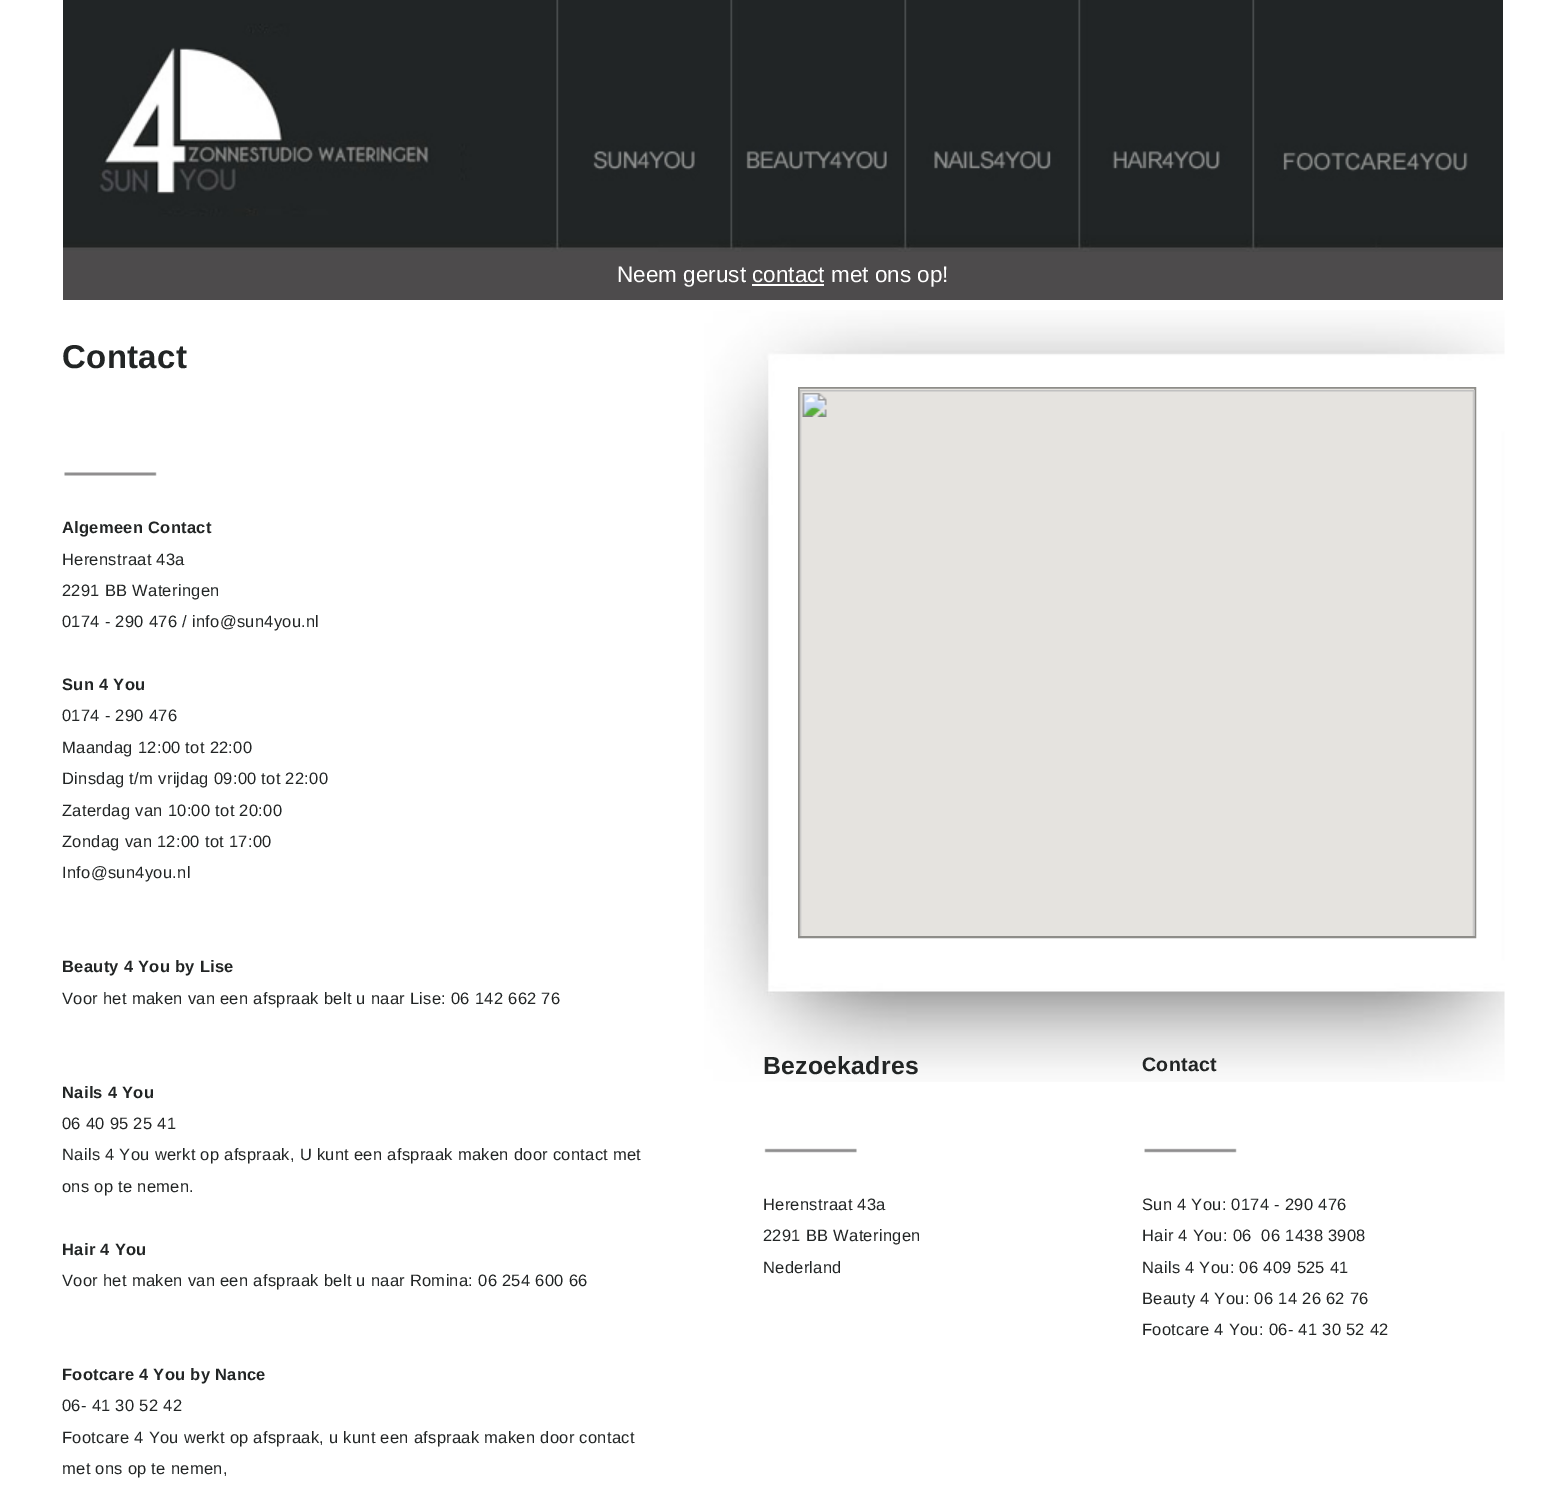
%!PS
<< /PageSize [1564 1501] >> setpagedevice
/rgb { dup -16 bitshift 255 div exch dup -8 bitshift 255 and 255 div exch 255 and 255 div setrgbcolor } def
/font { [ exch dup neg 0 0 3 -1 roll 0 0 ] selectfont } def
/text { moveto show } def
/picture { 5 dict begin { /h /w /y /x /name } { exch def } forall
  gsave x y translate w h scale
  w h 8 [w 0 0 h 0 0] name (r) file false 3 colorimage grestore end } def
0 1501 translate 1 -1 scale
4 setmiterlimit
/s1 { /LiberationSans-Regular 22.5 font 16#FFFFFF rgb } def
16#FFFFFF rgb
0 0 1564 1501 rectfill
16#4D4B4C rgb
63 252 1440 48 rectfill
(pic1.raw) 63 0 1440 252 picture
s1
(Neem gerust contact met ons op!) 617 282 text
752 284 72 2 rectfill
/LiberationSans-Bold 33 font
16#222525 rgb
62 368 moveto 0.3 0 (Contact) ashow
(pic2.raw) 64 472 93 4 picture
/LiberationSans-Bold 16.5 font
62 533 moveto 0.3 0 (Algemeen Contact) ashow
/LiberationSans-Regular 16.5 font
62 565 moveto 0.3 0 (Herenstraat 43a) ashow
62 596 moveto 0.3 0 (2291 BB Wateringen) ashow
62 627 moveto 0.3 0 (0174 - 290 476 / info@sun4you.nl) ashow
/LiberationSans-Bold 16.5 font
62 690 moveto 0.3 0 (Sun 4 You) ashow
/LiberationSans-Regular 16.5 font
62 721 moveto 0.3 0 (0174 - 290 476) ashow
62 753 moveto 0.3 0 (Maandag 12:00 tot 22:00) ashow
62 784 moveto 0.3 0 (Dinsdag t/m vrijdag 09:00 tot 22:00) ashow
62 816 moveto 0.3 0 (Zaterdag van 10:00 tot 20:00) ashow
62 847 moveto 0.3 0 (Zondag van 12:00 tot 17:00) ashow
62 878 moveto 0.3 0 (Info@sun4you.nl) ashow
/LiberationSans-Bold 16.5 font
62 972 moveto 0.3 0 (Beauty 4 You by Lise) ashow
/LiberationSans-Regular 16.5 font
62 1004 moveto 0.3 0 (Voor het maken van een afspraak belt u naar Lise: 06 142 662 76) ashow
/LiberationSans-Bold 16.5 font
62 1098 moveto 0.3 0 (Nails 4 You) ashow
/LiberationSans-Regular 16.5 font
62 1129 moveto 0.3 0 (06 40 95 25 41) ashow
62 1160 moveto 0.3 0 (Nails 4 You werkt op afspraak, U kunt een afspraak maken door contact met) ashow
62 1192 moveto 0.3 0 (ons op te nemen.) ashow
/LiberationSans-Bold 16.5 font
62 1255 moveto 0.3 0 (Hair 4 You) ashow
/LiberationSans-Regular 16.5 font
62 1286 moveto 0.3 0 (Voor het maken van een afspraak belt u naar Romina: 06 254 600 66) ashow
/LiberationSans-Bold 16.5 font
62 1380 moveto 0.3 0 (Footcare 4 You by Nance) ashow
/LiberationSans-Regular 16.5 font
62 1411 moveto 0.3 0 (06- 41 30 52 42) ashow
62 1443 moveto 0.3 0 (Footcare 4 You werkt op afspraak, u kunt een afspraak maken door contact) ashow
62 1474 moveto 0.3 0 (met ons op te nemen,) ashow
(pic3.raw) 704 310 801 772 picture
16#8E8D89 rgb
2 setlinewidth
799 388 676 549 rectstroke
(pic4.raw) 799 388 676 548 picture
/LiberationSans-Bold 24.75 font
16#222525 rgb
763 1074 moveto 0.3 0 (Bezoekadres) ashow
(pic5.raw) 764 1148 93 5 picture
/LiberationSans-Regular 16.5 font
763 1210 moveto 0.3 0 (Herenstraat 43a) ashow
763 1241 moveto 0.3 0 (2291 BB Wateringen) ashow
763 1273 moveto 0.3 0 (Nederland) ashow
/LiberationSans-Bold 19.5 font
1142 1071 moveto 0.3 0 (Contact) ashow
(pic6.raw) 1144 1148 93 5 picture
/LiberationSans-Regular 16.5 font
1142 1210 moveto 0.3 0 (Sun 4 You: 0174 - 290 476) ashow
1142 1241 moveto 0.3 0 (Hair 4 You: 06  06 1438 3908) ashow
1142 1273 moveto 0.3 0 (Nails 4 You: 06 409 525 41) ashow
1142 1304 moveto 0.3 0 (Beauty 4 You: 06 14 26 62 76) ashow
1142 1335 moveto 0.3 0 (Footcare 4 You: 06- 41 30 52 42) ashow
showpage
